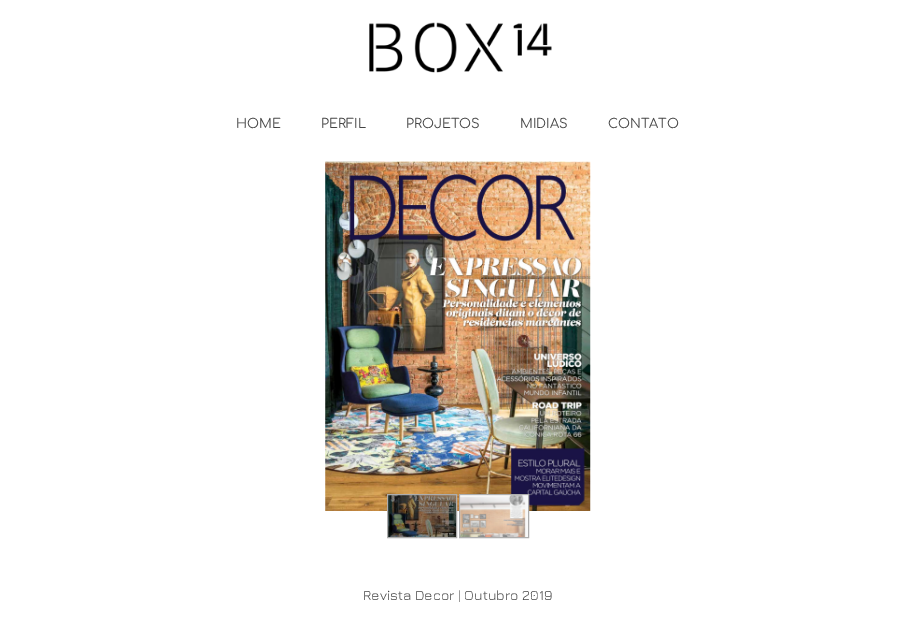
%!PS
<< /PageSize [915 619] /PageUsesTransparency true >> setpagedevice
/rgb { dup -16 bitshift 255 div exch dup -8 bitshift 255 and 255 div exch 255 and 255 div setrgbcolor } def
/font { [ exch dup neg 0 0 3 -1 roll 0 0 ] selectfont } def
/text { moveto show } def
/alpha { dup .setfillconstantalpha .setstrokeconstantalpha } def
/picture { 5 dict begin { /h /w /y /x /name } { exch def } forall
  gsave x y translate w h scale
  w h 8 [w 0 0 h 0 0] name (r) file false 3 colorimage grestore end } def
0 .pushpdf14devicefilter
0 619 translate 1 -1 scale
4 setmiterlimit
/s1 { /Comfortaa-Regular 13 font 16#434343 rgb } def
/s2 { /Jura-Light 14 font 16#434343 rgb } def
16#FFFFFF rgb
0 0 915 619 rectfill
(pic1.raw) 369 22 183 51 picture
s1
(HOME) 236 128 text
(PERFIL) 321 128 text
(PROJETOS) 406 128 text
(MIDIAS) 520 128 text
(CONTATO) 608 128 text
(pic2.raw) 325 161 266 350 picture
(pic3.raw) 388 495 68 42 picture
16#ADADAD rgb
387.5 494.5 69 43 rectstroke
16#FFFFFF rgb
526 495 2 16 rectfill
(pic4.raw) 460 495 66 42 picture
16#ADADAD rgb
459.5 494.5 69 43 rectstroke
0.5 alpha
16#F2F3F3 rgb
460 495 68 42 rectfill
1 alpha
s2
(Revista Decor | Outubro 2019) 363 600 text
.poppdf14devicefilter showpage
